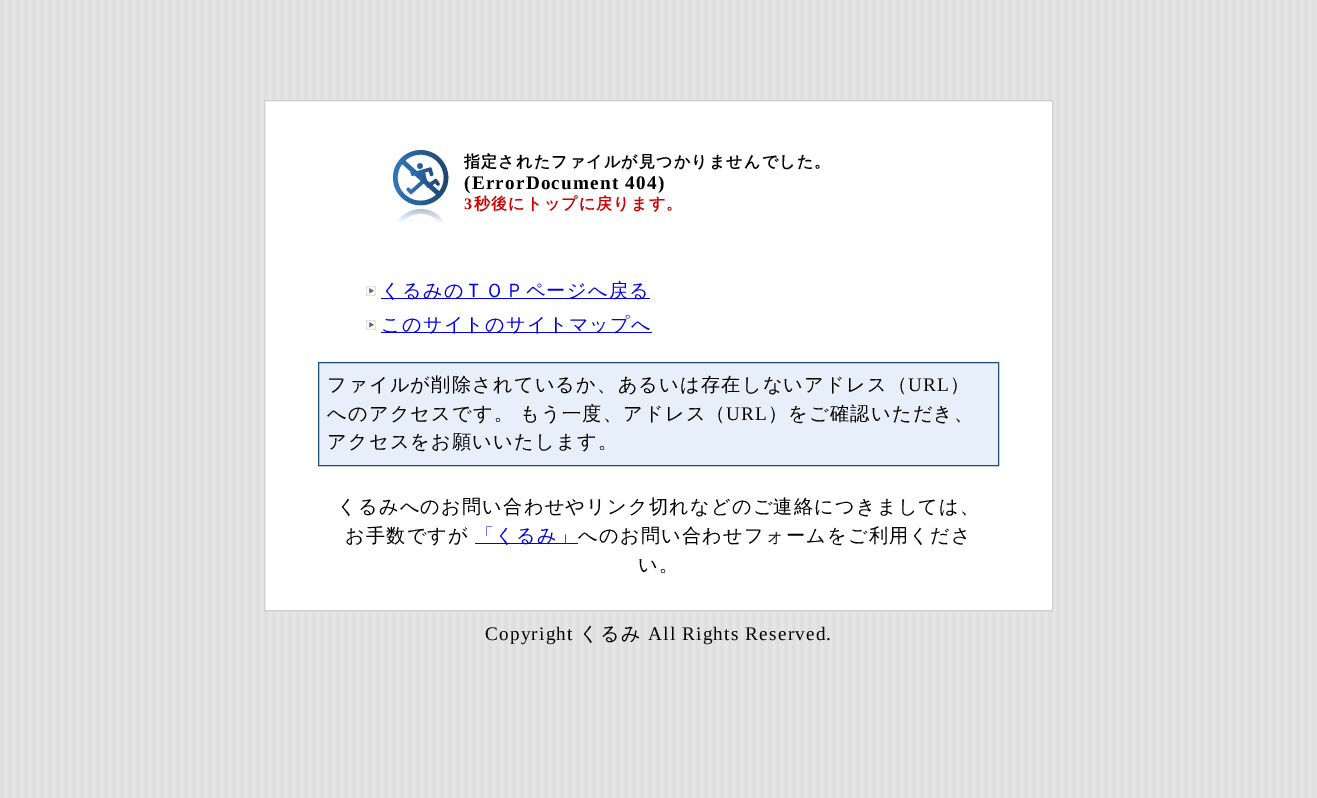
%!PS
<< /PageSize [1317 798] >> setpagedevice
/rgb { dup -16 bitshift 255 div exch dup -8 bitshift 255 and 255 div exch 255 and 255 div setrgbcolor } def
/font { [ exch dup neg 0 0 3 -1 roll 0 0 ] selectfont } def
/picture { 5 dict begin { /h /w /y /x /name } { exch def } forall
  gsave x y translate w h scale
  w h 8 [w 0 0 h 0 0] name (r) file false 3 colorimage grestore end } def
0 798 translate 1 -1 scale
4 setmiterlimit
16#FFFFFF rgb
0 0 1317 798 rectfill
(pic1.raw) 0 0 1317 798 picture
264.5 100.5 moveto 1052.5 100.5 lineto 1052.5 610.5 lineto 264.5 610.5 lineto closepath gsave fill grestore
16#CCCCCC rgb
stroke
(pic2.raw) 393 150 56 73 picture
/WenQuanYiZenHei-Bold 16 font
16#000000 rgb
464 167 moveto 1.2 0 (指定されたファイルが見つかりませんでした。) ashow
/LiberationSerif-Bold 19.2 font
464 189 moveto 1.2 0 (\(ErrorDocument 404\)) ashow
/LiberationSerif-Bold 16 font
16#CC0000 rgb
464 209 moveto 1.2 0 (3) ashow
/WenQuanYiZenHei-Bold 16 font
474 209 moveto 1.2 0 (秒後にトップに戻ります。) ashow
(pic3.raw) 366 286 10 10 picture
16#0000EE rgb
381 298 269 1 rectfill
/WenQuanYiZenHei-Medium 19.2 font
381 297 moveto 1.2 0 (くるみのＴＯＰページへ戻る) ashow
(pic3.raw) 366 320 10 10 picture
381 332 271 1 rectfill
381 331 moveto 1.2 0 (このサイトのサイトマップへ) ashow
16#E7F0FA rgb
318.5 362.5 moveto 998.5 362.5 lineto 998.5 465.5 lineto 318.5 465.5 lineto closepath gsave fill grestore
16#1E4C79 rgb
stroke
16#000000 rgb
327 391 moveto 1.2 0 (ファイルが削除されているか、あるいは存在しないアドレス（) ashow
/LiberationSerif-Regular 19.2 font
908 391 moveto 1.2 0 (URL) ashow
/WenQuanYiZenHei-Medium 19.2 font
950 391 moveto 1.2 0 (）) ashow
327 420 moveto -1 0 32 1.2 0 (へのアクセスです。 もう一度、アドレス（) awidthshow
/LiberationSerif-Regular 19.2 font
726 420 moveto 1.2 0 (URL) ashow
/WenQuanYiZenHei-Medium 19.2 font
768 420 moveto 1.2 0 (）をご確認いただき、) ashow
327 448 moveto 1.2 0 (アクセスをお願いいたします。) ashow
337 513 moveto 1.2 0 (くるみへのお問い合わせやリンク切れなどのご連絡につきましては、) ashow
345 542 moveto 1.2 0 (お手数ですが) ashow
16#0000EE rgb
475 543 103 1 rectfill
475 542 moveto 1.2 0 (「くるみ」) ashow
16#000000 rgb
578 542 moveto 1.2 0 (へのお問い合わせフォームをご利用くださ) ashow
638 571 moveto 1.2 0 (い。) ashow
/LiberationSerif-Regular 19.2 font
485 640 moveto 1.2 0 (Copyright) ashow
/WenQuanYiZenHei-Medium 19.2 font
579 640 moveto 1.2 0 (くるみ) ashow
/LiberationSerif-Regular 19.2 font
648 640 moveto 1.2 0 (All Rights Reserved.) ashow
showpage
